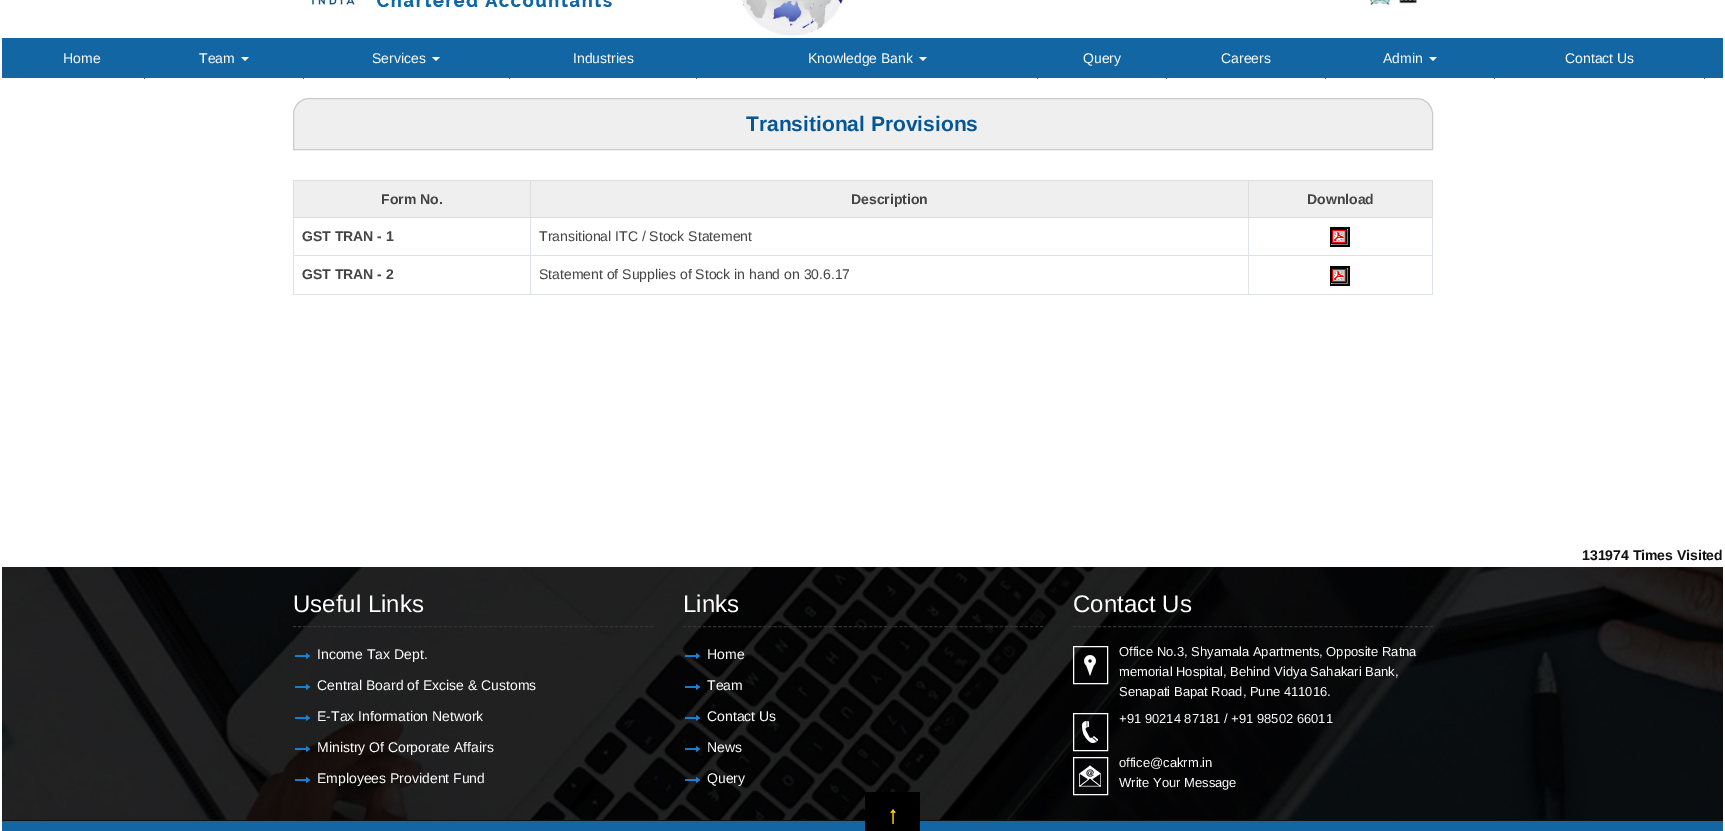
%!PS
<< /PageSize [1725 831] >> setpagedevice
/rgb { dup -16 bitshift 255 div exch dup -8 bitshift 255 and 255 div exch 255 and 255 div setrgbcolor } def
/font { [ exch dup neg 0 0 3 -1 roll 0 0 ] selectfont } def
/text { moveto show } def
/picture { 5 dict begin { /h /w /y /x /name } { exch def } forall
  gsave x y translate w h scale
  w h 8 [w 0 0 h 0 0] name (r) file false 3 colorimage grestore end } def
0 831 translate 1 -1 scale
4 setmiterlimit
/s1 { /LiberationSans-Regular 14 font 16#FFFFFF rgb } def
/s2 { /LiberationSans-Bold 21 font 16#065695 rgb } def
/s3 { /LiberationSans-Bold 14 font 16#444444 rgb } def
/s4 { /LiberationSans-Regular 14 font 16#444444 rgb } def
/s5 { /LiberationSans-Bold 14 font 16#111111 rgb } def
/s6 { /LiberationSans-Regular 24 font 16#FFFFFF rgb } def
/s7 { /LiberationSans-Regular 13 font 16#FFFFFF rgb } def
16#FFFFFF rgb
0 0 1725 831 rectfill
(pic1.raw) 312 0 300 7 picture
(pic2.raw) 741 0 102 36 picture
(pic3.raw) 1370 0 47 5 picture
16#1166A3 rgb
2 38 1721 40 rectfill
144 78 1 1 rectfill
s1
(Home) 63 63 text
16#1166A3 rgb
303 78 1 1 rectfill
s1
(Team) 199 63 text
241 57 moveto 249 57 lineto 245 61 lineto closepath fill
16#1166A3 rgb
509 78 1 1 rectfill
s1
(Services) 372 63 text
432 57 moveto 440 57 lineto 436 61 lineto closepath fill
16#1166A3 rgb
696 78 1 1 rectfill
s1
(Industries) 573 63 text
16#1166A3 rgb
1037 78 1 1 rectfill
s1
(Knowledge Bank) 808 63 text
919 57 moveto 927 57 lineto 923 61 lineto closepath fill
16#1166A3 rgb
1166 78 1 1 rectfill
s1
(Query) 1083 63 text
16#1166A3 rgb
1325 78 1 1 rectfill
s1
(Careers) 1221 63 text
16#1166A3 rgb
1494 78 1 1 rectfill
s1
(Admin) 1383 63 text
1429 57 moveto 1437 57 lineto 1433 61 lineto closepath fill
16#1166A3 rgb
1704 78 1 1 rectfill
s1
(Contact Us) 1565 63 text
16#EFEFEF rgb
309 98.5 moveto 1417 98.5 lineto 1425.5 98.5 1432.5 105.5 1432.5 114 curveto 1432.5 149.5 lineto 293.5 149.5 lineto 293.5 114 lineto 293.5 105.5 300.5 98.5 309 98.5 curveto closepath gsave fill grestore
16#CCCCCC rgb
stroke
s2
(Transitional Provisions) 746 131 text
16#DEE2E6 rgb
1432 218 1 77 rectfill
293 294 1140 1 rectfill
293 218 1 77 rectfill
16#EFEFEF rgb
294 181 236 36 rectfill
16#DDDDDD rgb
1248 180 185 1 rectfill
1432 180 1 38 rectfill
16#DEE2E6 rgb
1248 255 185 1 rectfill
1248 255 1 40 rectfill
530 255 719 1 rectfill
1248 217 1 39 rectfill
16#DDDDDD rgb
1248 217 185 1 rectfill
1248 180 1 38 rectfill
530 180 719 1 rectfill
16#DEE2E6 rgb
530 255 1 40 rectfill
293 255 238 1 rectfill
530 217 1 39 rectfill
16#DDDDDD rgb
530 217 719 1 rectfill
530 180 1 38 rectfill
293 180 238 1 rectfill
293 217 238 1 rectfill
293 180 1 38 rectfill
s3
(Form No.) 381 204 text
16#EFEFEF rgb
531 181 717 36 rectfill
s3
(Description) 851 204 text
16#EFEFEF rgb
1249 181 183 36 rectfill
s3
(Download) 1307 204 text
(GST TRAN - 1) 302 241 text
s4
(Transitional ITC / Stock Statement) 539 241 text
(pic4.raw) 1330 227 20 20 picture
s3
(GST TRAN - 2) 302 279 text
s4
(Statement of Supplies of Stock in hand on 30.6.17) 539 279 text
(pic4.raw) 1330 266 20 20 picture
s5
(131974 Times Visited) 1582 560 text
(pic5.raw) 2 567 1721 253 picture
16#333333 rgb
[3 2.03] 0 setdash
293 626.5 moveto 653 626.5 lineto stroke
s6
(Useful Links) 293 612 text
(pic6.raw) 295 653 15 6 picture
s1
(Income Tax Dept.) 317 659 text
(pic7.raw) 295 684 15 6 picture
(Central Board of Excise & Customs) 317 690 text
(pic8.raw) 295 715 15 6 picture
(E-Tax Information Network) 317 721 text
(pic9.raw) 295 746 15 6 picture
(Ministry Of Corporate Affairs) 317 752 text
(pic10.raw) 295 777 15 6 picture
(Employees Provident Fund) 317 783 text
16#333333 rgb
683 626.5 moveto 1043 626.5 lineto stroke
s6
(Links) 683 612 text
(pic11.raw) 685 653 15 6 picture
s1
(Home) 707 659 text
(pic12.raw) 685 684 15 6 picture
(Team) 707 690 text
(pic13.raw) 685 715 15 6 picture
(Contact Us) 707 721 text
(pic14.raw) 685 746 15 6 picture
(News) 707 752 text
(pic15.raw) 685 777 15 6 picture
(Query) 707 783 text
16#333333 rgb
1073 626.5 moveto 1433 626.5 lineto stroke
s6
(Contact Us) 1073 612 text
[] 0 setdash
1073.5 646.5 34 37 rectstroke
(pic16.raw) 1084 655 12 21 picture
s7
(Office No.3, Shyamala Apartments, Opposite Ratna) 1119 656 text
(memorial Hospital, Behind Vidya Sahakari Bank,) 1119 676 text
(Senapati Bapat Road, Pune 411016.) 1119 696 text
1073.5 713.5 34 37 rectstroke
(pic17.raw) 1082 721 16 22 picture
(+91 90214 87181 / +91 98502 66011) 1119 723 text
1073.5 757.5 34 37 rectstroke
(pic18.raw) 1079 765 22 22 picture
(office@cakrm.in) 1119 767 text
(Write Your Message) 1119 787 text
16#1166A3 rgb
2 821 1721 10 rectfill
16#111111 rgb
2 820 1721 1 rectfill
16#000000 rgb
865 792 55 39 rectfill
(pic19.raw) 890 809 6 15 picture
showpage
